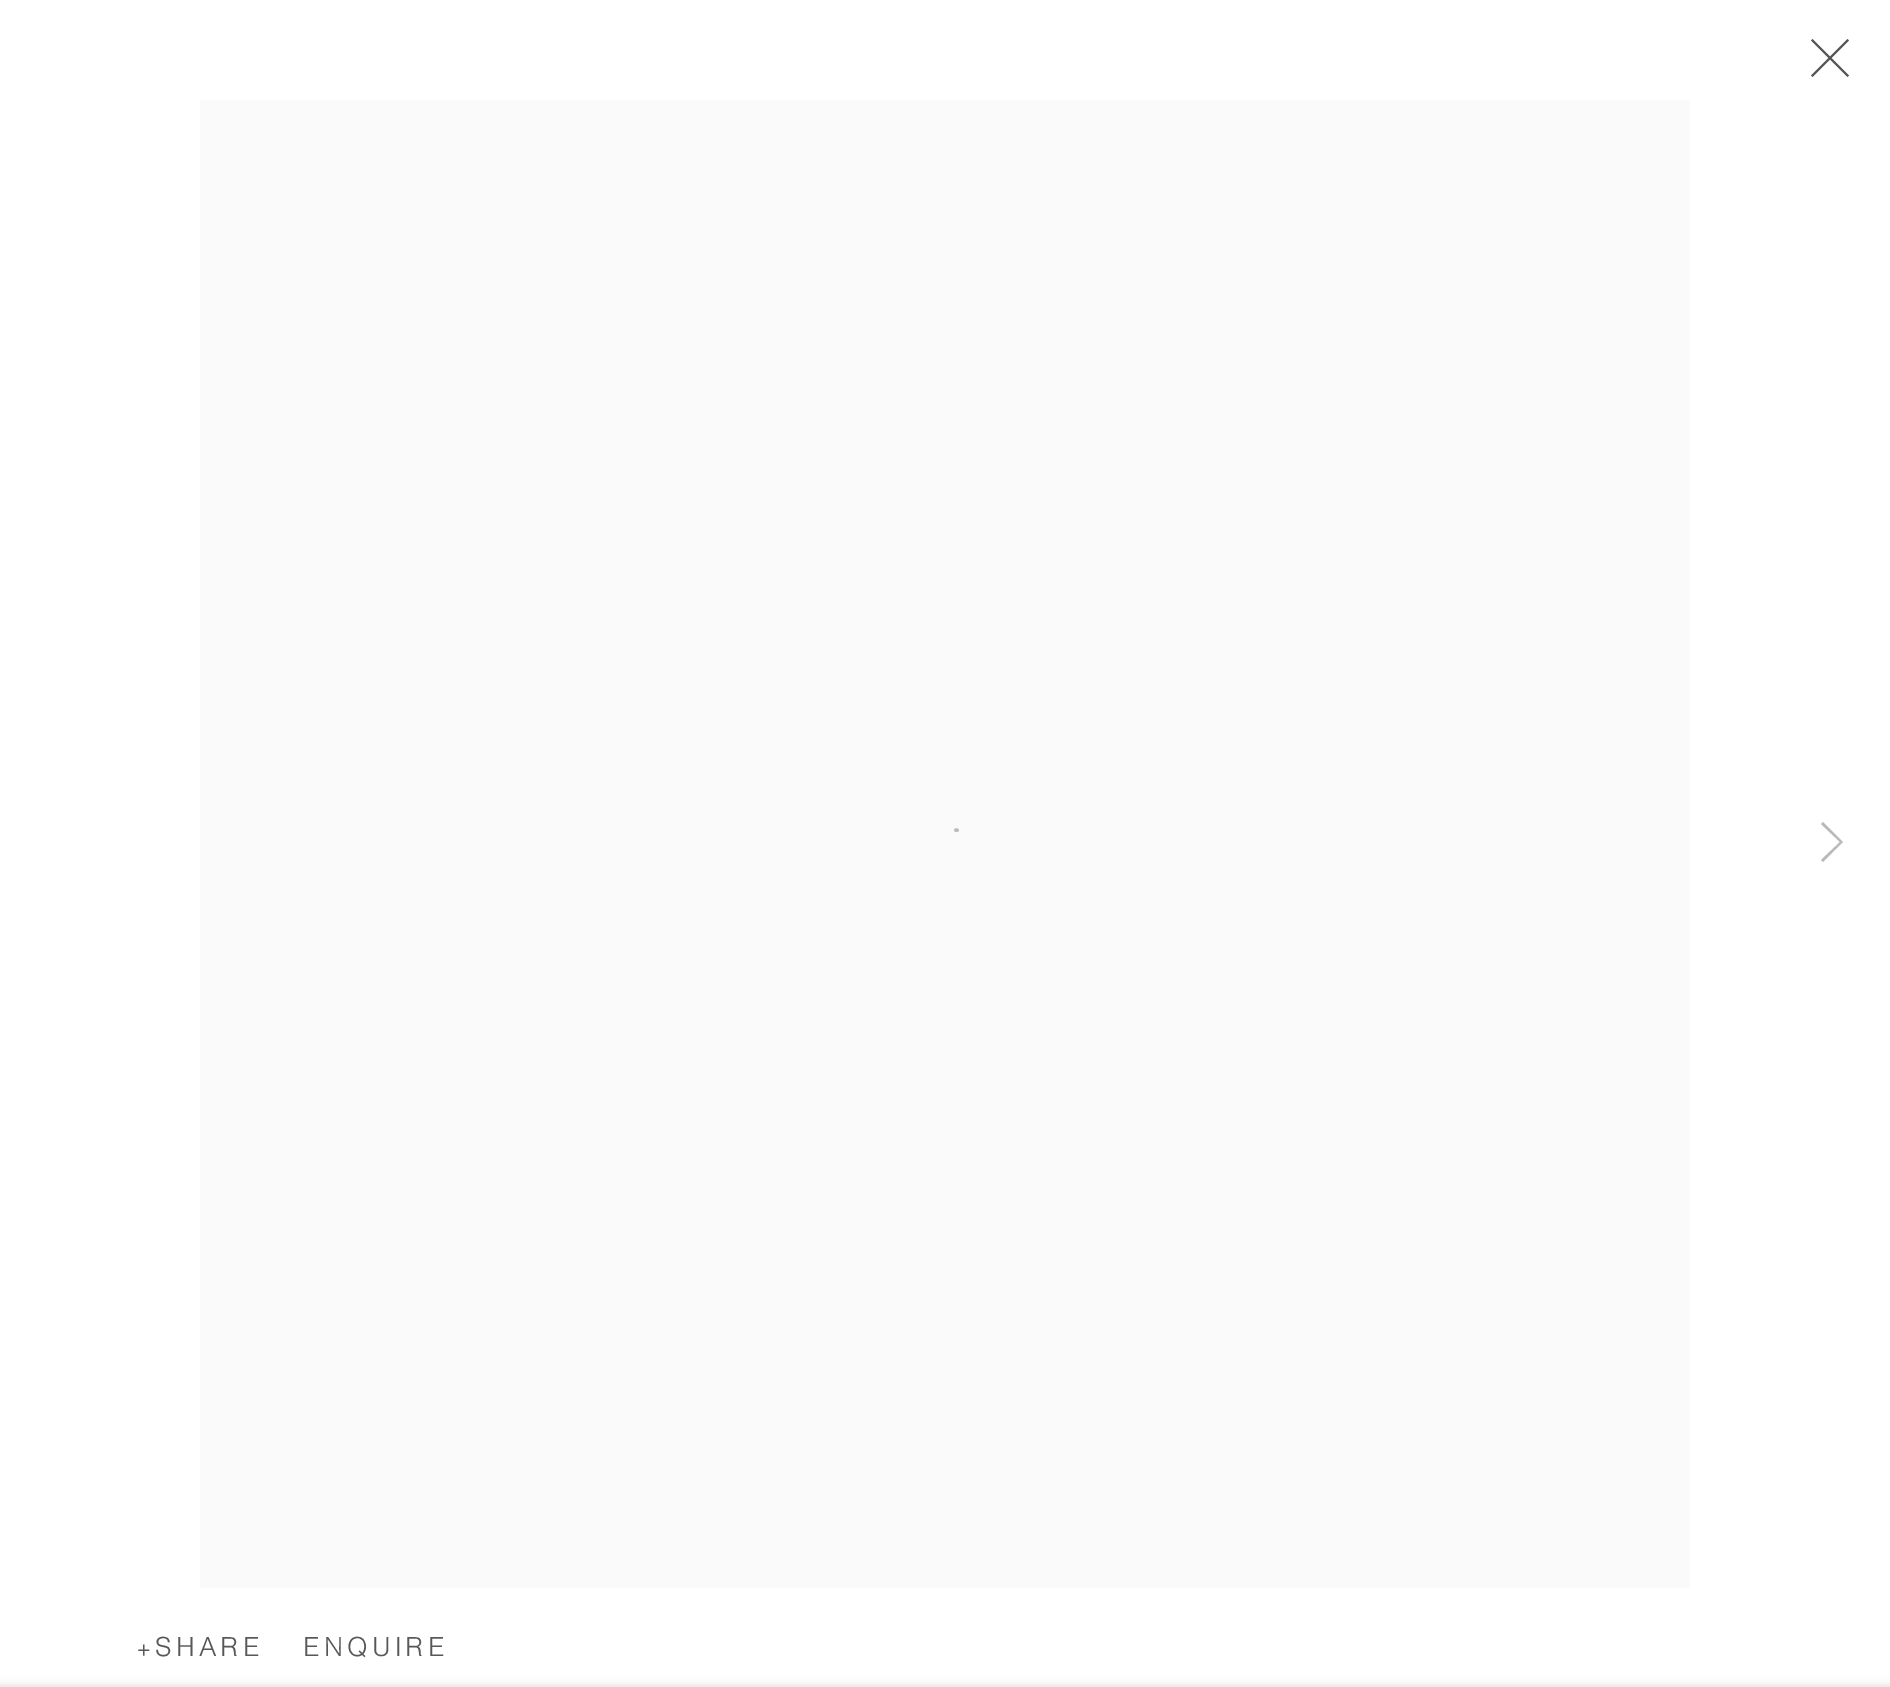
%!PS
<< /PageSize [1890 1687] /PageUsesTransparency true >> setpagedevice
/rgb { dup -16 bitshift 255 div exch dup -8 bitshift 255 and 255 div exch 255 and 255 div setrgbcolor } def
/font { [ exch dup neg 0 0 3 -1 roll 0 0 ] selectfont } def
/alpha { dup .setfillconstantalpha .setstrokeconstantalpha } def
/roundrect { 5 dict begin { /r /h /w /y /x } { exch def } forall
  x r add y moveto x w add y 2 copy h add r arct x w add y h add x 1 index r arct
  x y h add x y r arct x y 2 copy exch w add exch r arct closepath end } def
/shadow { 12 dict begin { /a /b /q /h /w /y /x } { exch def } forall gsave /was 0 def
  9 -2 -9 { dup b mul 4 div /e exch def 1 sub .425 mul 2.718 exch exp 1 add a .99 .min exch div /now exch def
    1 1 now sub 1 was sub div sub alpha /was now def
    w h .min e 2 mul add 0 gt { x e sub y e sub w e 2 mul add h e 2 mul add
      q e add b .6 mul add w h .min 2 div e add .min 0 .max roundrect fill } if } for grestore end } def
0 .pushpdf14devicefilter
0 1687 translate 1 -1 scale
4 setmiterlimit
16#FFFFFF rgb
0 0 1890 1687 rectfill
16#555555 rgb
1849 40.5 moveto 1847.5 39 lineto 1830 56.5 lineto 1812.5 39 lineto 1811 40.5 lineto 1828.5 58 lineto 1811 75.5 lineto 1812.5 77 lineto 1830 59.5 lineto 1847.5 77 lineto 1849 75.5 lineto 1831.5 58 lineto closepath fill
16#B9B9B9 rgb
1843 842 moveto 1823 822 lineto 1821 824 lineto 1840 842 lineto 1821 860 lineto 1823 862 lineto closepath fill
16#FAFAFA rgb
200 100 1490 1488 rectfill
16#BBBBBB rgb
3.6 setlinewidth
1 setlinecap
956 830 moveto 957 830 lineto stroke
/Almarai-Light 26.5 font
16#585858 rgb
137 1656 moveto 4.25 0 (+SHARE) ashow
303 1656 moveto 4.25 0 (ENQUIRE) ashow
16#000000 rgb
0 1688 1890 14 0 5 0.23 shadow
.poppdf14devicefilter showpage
